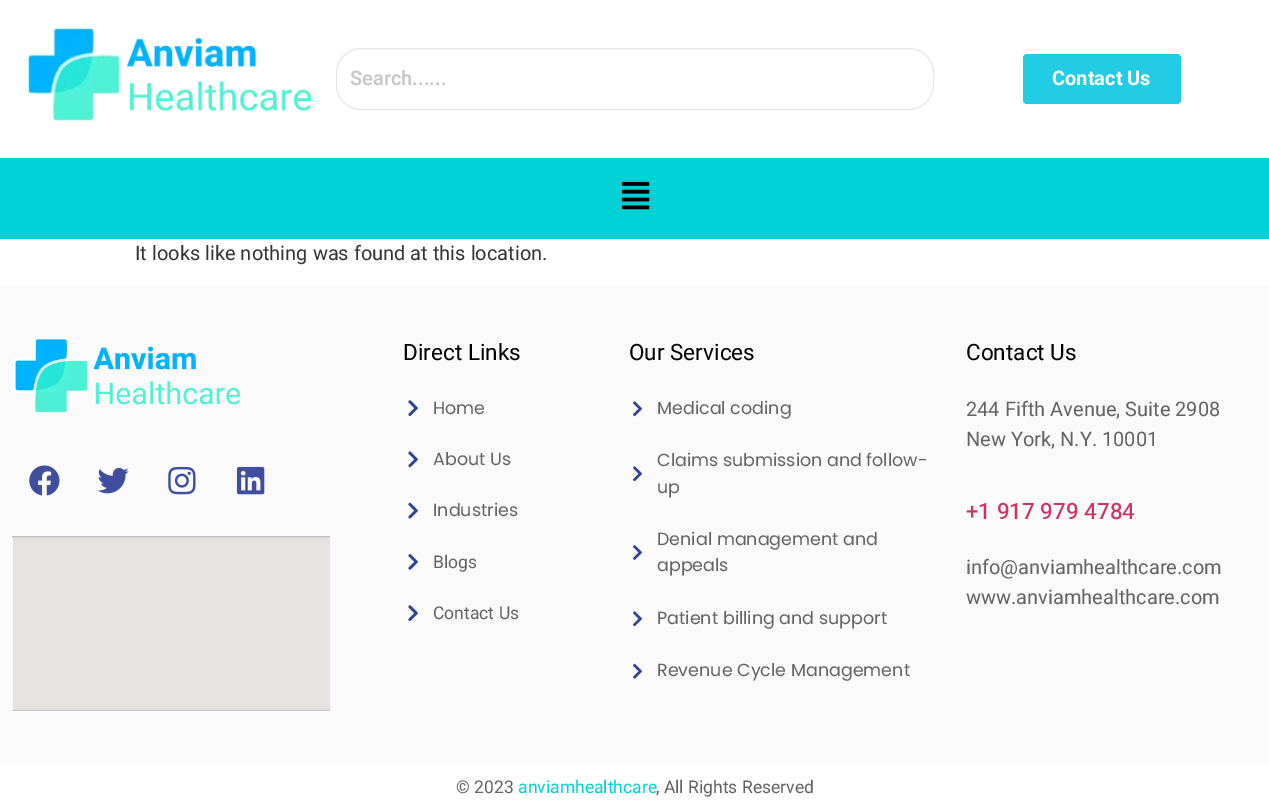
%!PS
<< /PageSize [1269 803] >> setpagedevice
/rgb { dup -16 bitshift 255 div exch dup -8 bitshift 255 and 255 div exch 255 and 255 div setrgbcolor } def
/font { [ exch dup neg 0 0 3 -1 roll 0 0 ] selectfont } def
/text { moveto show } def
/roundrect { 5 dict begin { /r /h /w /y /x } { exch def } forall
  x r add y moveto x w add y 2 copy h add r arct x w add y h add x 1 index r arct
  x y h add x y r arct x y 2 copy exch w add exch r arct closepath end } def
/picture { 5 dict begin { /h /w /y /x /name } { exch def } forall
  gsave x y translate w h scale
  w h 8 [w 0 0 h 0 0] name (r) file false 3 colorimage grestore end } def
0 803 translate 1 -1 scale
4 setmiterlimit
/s1 { /Heebo-SemiBold 20 font 16#C7C7C7 rgb } def
/s2 { /Heebo-Bold 20 font 16#FFFFFF rgb } def
/s3 { /Roboto-Regular 20 font 16#333333 rgb } def
/s4 { /Heebo-Regular 22.5 font 16#000000 rgb } def
/s5 { /Poppins-Regular 17.5 font 16#636363 rgb } def
/s6 { /Heebo-Regular 17.5 font 16#636363 rgb } def
/s7 { /Heebo-Regular 20 font 16#636363 rgb } def
/s8 { /Heebo-Medium 22.5 font 16#CC3366 rgb } def
/s9 { /Heebo-Regular 17.5 font 16#00D1D5 rgb } def
16#FFFFFF rgb
0 0 1269 803 rectfill
(pic1.raw) 25 25 287 98 picture
16#E7E7E7 rgb
336.5 48.5 597 61 24.5 roundrect stroke
s1
(Search......) 350 85 text
16#21CCE4 rgb
1023 54 158 50 4 roundrect fill
s2
(Contact Us) 1052 85 text
16#00D1D5 rgb
0 158 1269 81 rectfill
(pic2.raw) 621 181 29 29 picture
s3
(It looks like nothing was found at this location.) 135 260 text
16#FAFAFA rgb
0 286 1269 475 rectfill
(pic3.raw) 13 337 227 77 picture
(pic4.raw) 29 465 31 31 picture
(pic5.raw) 98 467 31 27 picture
(pic6.raw) 168 466 28 29 picture
(pic7.raw) 236 466 29 29 picture
(pic8.raw) 12 536 318 175 picture
s4
(Direct Links) 403 360 text
(pic9.raw) 408 400 10 16 picture
s5
(Home) 433 414 text
(pic10.raw) 408 451 10 17 picture
(About Us) 433 465 text
(pic11.raw) 408 502 10 17 picture
(Industries) 433 516 text
(pic12.raw) 408 554 10 16 picture
s6
(Blogs) 433 568 text
(pic9.raw) 408 605 10 16 picture
(Contact Us) 433 619 text
s4
(Our Services) 629 360 text
(pic13.raw) 633 401 9 16 picture
s5
(Medical coding) 657 414 text
(pic13.raw) 633 466 9 16 picture
(Claims submission and follow-) 657 466 text
(up) 657 493 text
(pic14.raw) 633 545 9 15 picture
(Denial management and) 657 545 text
(appeals) 657 571 text
(pic13.raw) 633 611 9 16 picture
(Patient billing and support) 657 624 text
(pic15.raw) 633 663 9 16 picture
(Revenue Cycle Management) 657 676 text
s4
(Contact Us) 966 360 text
s7
(244 Fifth Avenue, Suite 2908) 966 416 text
(New York, N.Y. 10001) 966 446 text
s8
(+1 917 979 4784) 966 519 text
s7
(info@anviamhealthcare.com) 966 574 text
(www.anviamhealthcare.com) 966 604 text
s6
(© 2023) 456 793 text
s9
(anviamhealthcare) 518 793 text
s6
(, All Rights Reserved) 656 793 text
showpage
